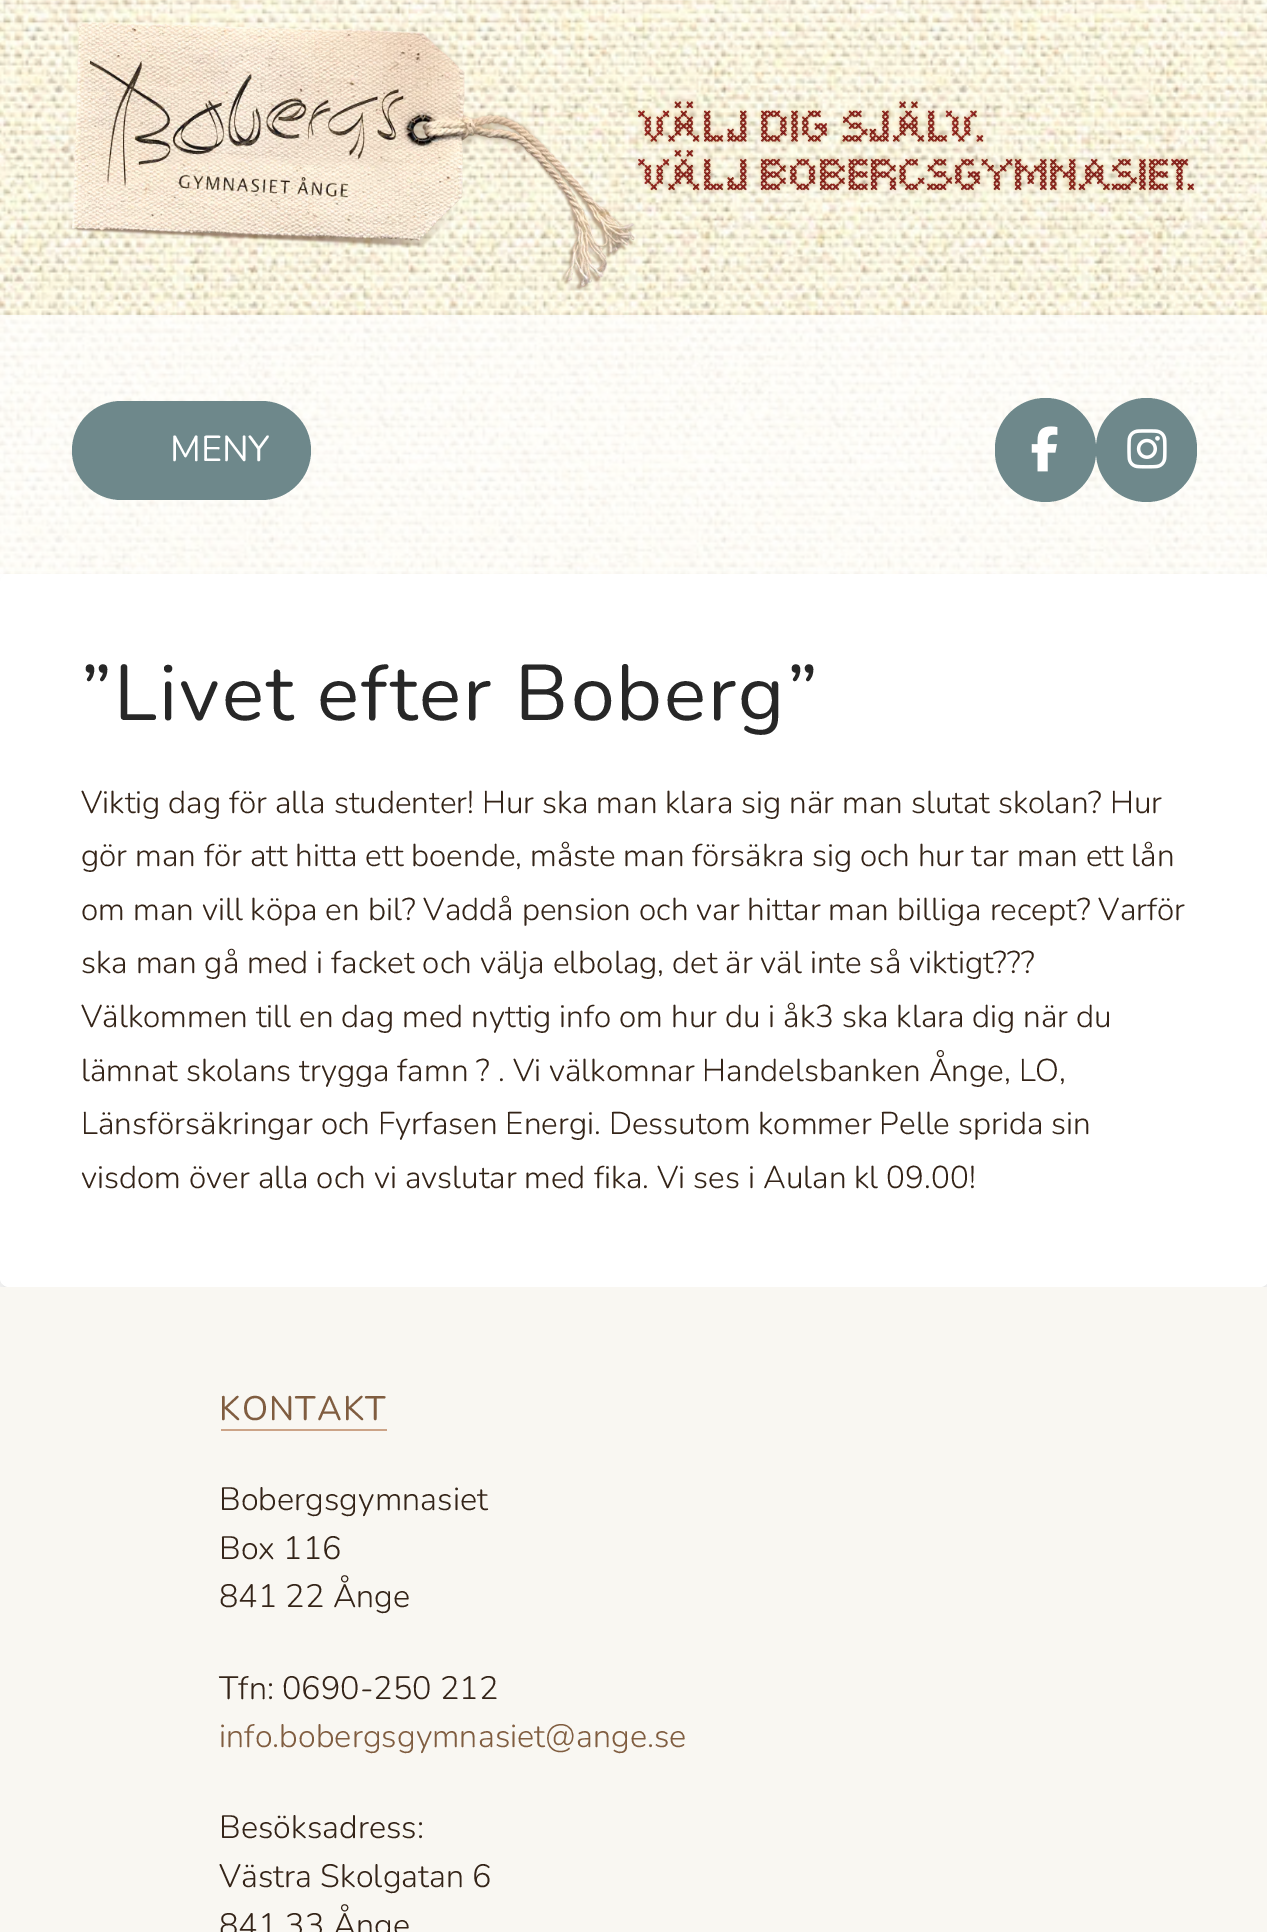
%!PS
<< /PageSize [1267 1932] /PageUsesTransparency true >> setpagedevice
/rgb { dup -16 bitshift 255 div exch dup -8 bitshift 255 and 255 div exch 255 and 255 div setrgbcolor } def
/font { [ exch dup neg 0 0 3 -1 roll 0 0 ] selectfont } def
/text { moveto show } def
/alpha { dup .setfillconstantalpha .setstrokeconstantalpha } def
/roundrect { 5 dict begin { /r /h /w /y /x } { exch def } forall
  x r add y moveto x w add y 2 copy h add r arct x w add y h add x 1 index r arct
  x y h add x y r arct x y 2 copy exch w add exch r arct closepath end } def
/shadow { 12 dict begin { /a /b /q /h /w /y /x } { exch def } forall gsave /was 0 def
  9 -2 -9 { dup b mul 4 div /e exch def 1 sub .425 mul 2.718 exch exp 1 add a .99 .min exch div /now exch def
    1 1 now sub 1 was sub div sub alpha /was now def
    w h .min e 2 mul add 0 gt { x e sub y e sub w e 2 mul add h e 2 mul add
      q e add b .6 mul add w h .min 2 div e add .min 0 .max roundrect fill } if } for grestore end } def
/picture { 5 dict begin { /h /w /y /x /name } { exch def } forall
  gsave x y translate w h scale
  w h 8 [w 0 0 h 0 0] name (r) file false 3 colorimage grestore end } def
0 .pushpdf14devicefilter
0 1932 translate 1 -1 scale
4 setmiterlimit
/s1 { /Nunito-Regular 36 font 16#FFFFFF rgb } def
/s2 { /Nunito-Light 31.5 font 16#342418 rgb } def
/s3 { /Nunito-Light 32.4 font 16#342418 rgb } def
/s4 { /Nunito-Light 32.4 font 16#805D40 rgb } def
16#FFFFFF rgb
0 0 1267 1932 rectfill
(pic1.raw) 0 0 1267 574 picture
(pic2.raw) 72 22 563 269 picture
(pic3.raw) 635 99 562 94 picture
16#000000 rgb
0 578 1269 714 9 5.5 0.13 shadow
16#FFFFFF rgb
0 574 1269 713 9 roundrect fill
0.75 alpha
0 315 1267 266 rectfill
1 alpha
16#6E888B rgb
72 401 239 99 49.5 roundrect fill
s1
(MENY) 170 461 text
16#6E888B rgb
995 398 101 104 50.5 roundrect fill
(pic4.raw) 1031 426 27 46 picture
1096 398 101 104 50.5 roundrect fill
(pic5.raw) 1127 429 40 40 picture
/Nunito-Regular 78.75 font
16#272727 rgb
81 720 moveto 2 0 (”Livet efter Boberg”) ashow
s2
(Viktig dag för alla studenter! Hur ska man klara sig när man slutat skolan? Hur) 81 813 text
(gör man för att hitta ett boende, måste man försäkra sig och hur tar man ett lån) 81 866 text
(om man vill köpa en bil? Vaddå pension och var hittar man billiga recept? Varför) 81 920 text
(ska man gå med i facket och välja elbolag, det är väl inte så viktigt???) 81 973 text
(Välkommen till en dag med nyttig info om hur du i åk3 ska klara dig när du) 81 1027 text
(lämnat skolans trygga famn ? . Vi välkomnar Handelsbanken Ånge, LO,) 81 1081 text
(Länsförsäkringar och Fyrfasen Energi. Dessutom kommer Pelle sprida sin) 81 1134 text
(visdom över alla och vi avslutar med fika. Vi ses i Aulan kl 09.00!) 81 1188 text
16#F9F7F2 rgb
0 1287 1267 645 rectfill
16#CCA488 rgb
221 1429 166 2 rectfill
/Nunito-Regular 34 font
16#805D40 rgb
219 1420 moveto 1.25 0 (KONTAKT) ashow
s3
(Bobergsgymnasiet) 219 1510 text
(Box 116) 219 1559 text
(841 22 Ånge) 219 1607 text
(Tfn: 0690-250 212) 219 1699 text
s4
(info.bobergsgymnasiet@ange.se) 219 1747 text
s3
(Besöksadress:) 219 1838 text
(Västra Skolgatan 6) 219 1887 text
(841 33 Ånge) 219 1936 text
.poppdf14devicefilter showpage
